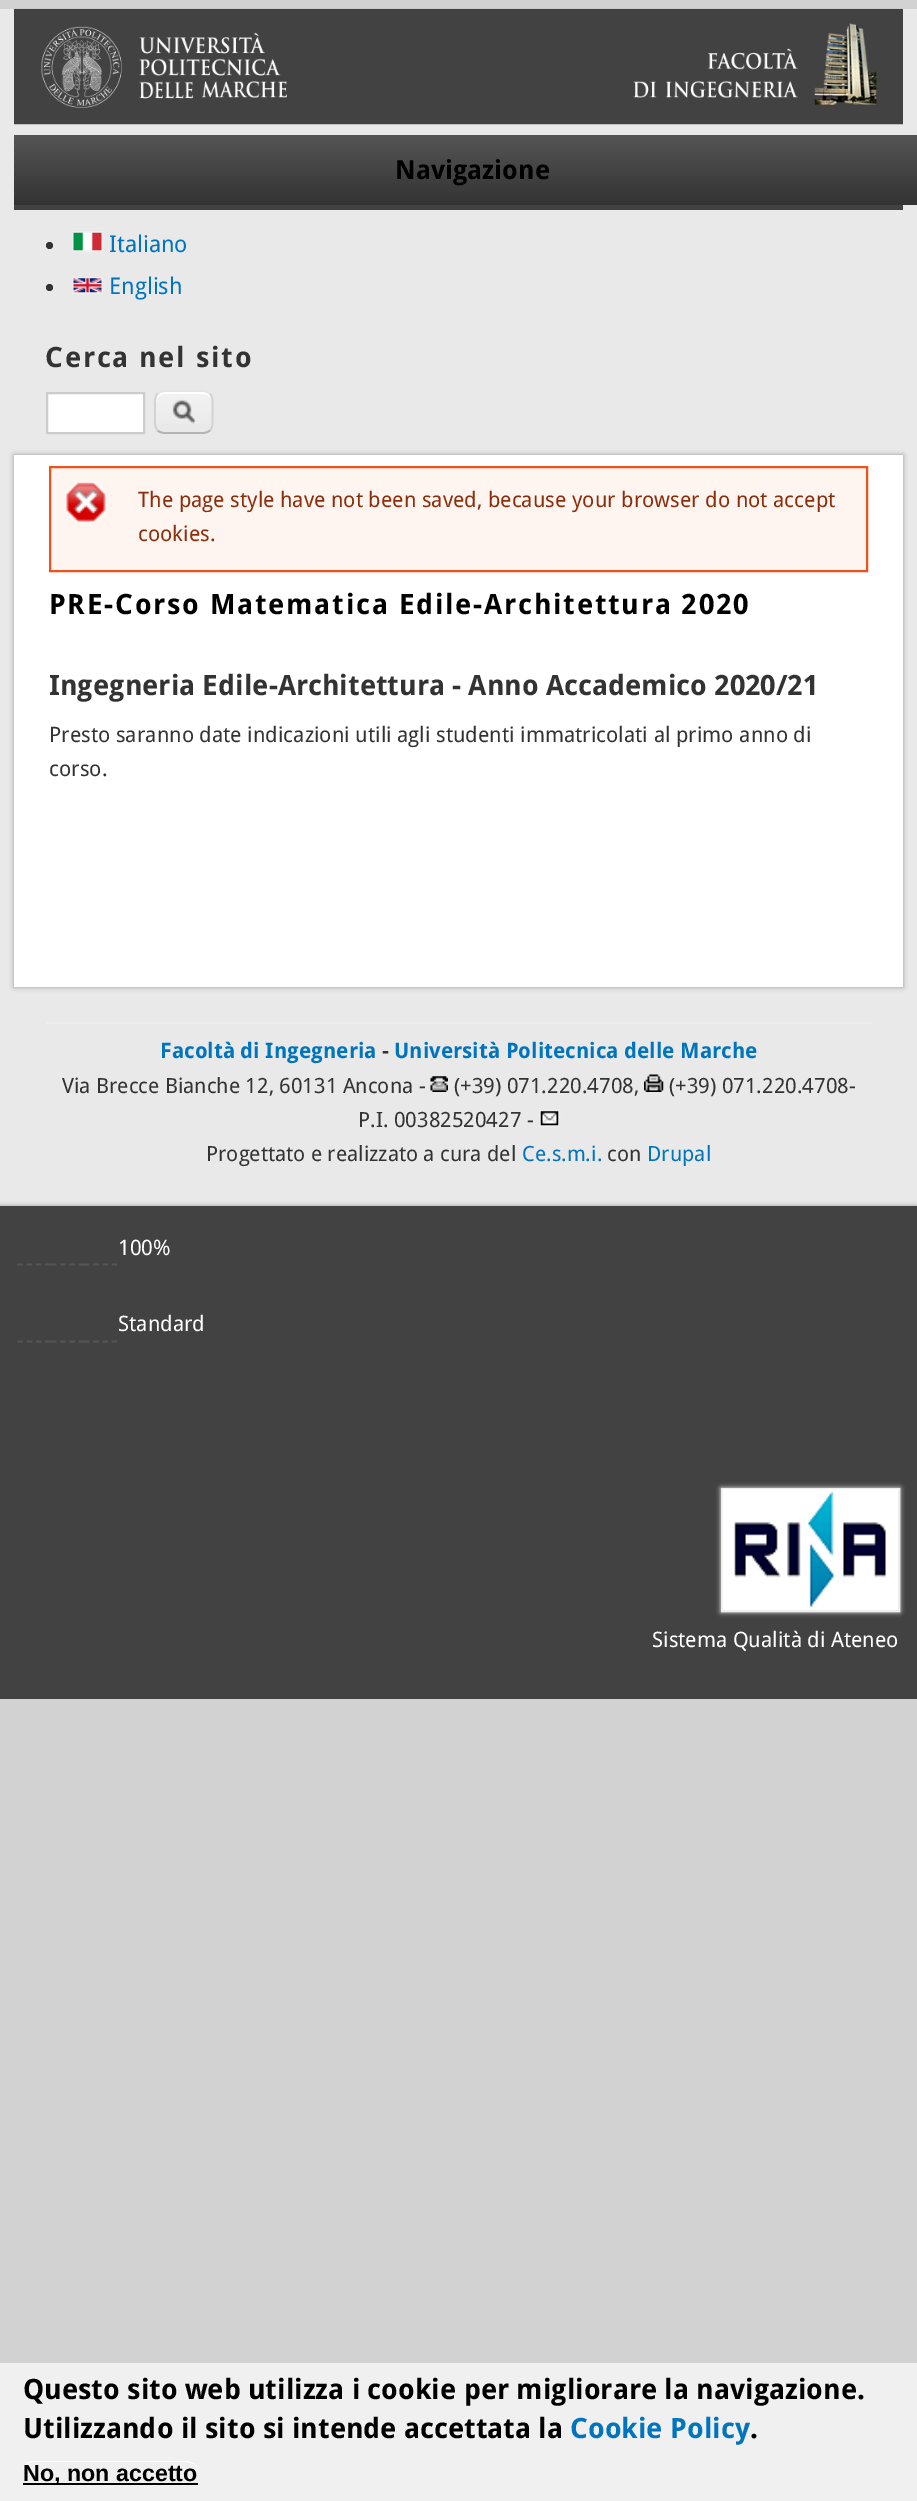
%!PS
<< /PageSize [917 2501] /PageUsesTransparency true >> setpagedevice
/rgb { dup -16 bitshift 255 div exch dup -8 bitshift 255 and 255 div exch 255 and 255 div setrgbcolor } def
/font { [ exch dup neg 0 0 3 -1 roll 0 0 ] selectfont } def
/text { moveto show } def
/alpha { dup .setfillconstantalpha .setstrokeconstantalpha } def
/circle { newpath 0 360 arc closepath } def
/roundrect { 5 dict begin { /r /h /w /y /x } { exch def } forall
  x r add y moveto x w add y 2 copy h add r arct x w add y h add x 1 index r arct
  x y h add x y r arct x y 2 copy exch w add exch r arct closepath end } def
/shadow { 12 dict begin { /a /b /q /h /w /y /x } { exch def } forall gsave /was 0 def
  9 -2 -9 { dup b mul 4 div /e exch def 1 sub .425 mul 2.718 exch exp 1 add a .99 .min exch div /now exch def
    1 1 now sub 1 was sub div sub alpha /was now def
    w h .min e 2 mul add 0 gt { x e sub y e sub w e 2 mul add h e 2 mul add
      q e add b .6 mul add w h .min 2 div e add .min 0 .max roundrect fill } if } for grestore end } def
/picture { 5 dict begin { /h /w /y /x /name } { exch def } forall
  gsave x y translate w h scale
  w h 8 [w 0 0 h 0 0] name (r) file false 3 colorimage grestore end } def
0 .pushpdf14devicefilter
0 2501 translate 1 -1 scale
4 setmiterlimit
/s1 { /DroidSans-Bold 26.25 font 16#000000 rgb } def
/s2 { /DroidSans-Regular 23 font 16#0074BD rgb } def
/s3 { /DroidSans-Regular 21.3 font 16#8C2E0B rgb } def
/s4 { /DroidSans-Bold 28 font 16#333333 rgb } def
/s5 { /DroidSans-Regular 21.3 font 16#333333 rgb } def
/s6 { /DroidSans-Bold 21.3 font 16#0074BD rgb } def
/s7 { /DroidSans-Bold 21.3 font 16#333333 rgb } def
/s8 { /DroidSans-Regular 21 font 16#333333 rgb } def
/s9 { /DroidSans-Regular 21 font 16#0074BD rgb } def
/s10 { /DroidSans-Regular 21.3 font 16#FFFFFF rgb } def
/s11 { /DroidSans-Bold 28 font 16#000000 rgb } def
/s12 { /DroidSans-Bold 28 font 16#0074BD rgb } def
/s13 { /LiberationSans-Bold 23.25 font 16#000000 rgb } def
16#D2D2D2 rgb
0 0 917 2501 rectfill
16#E9E9E9 rgb
0 9 917 1197 rectfill
(pic1.raw) 14 8 889 117 picture
16#424242 rgb
14 205 889 5 rectfill
gsave 14 135 moveto 917 135 lineto 917 205 lineto 14 205 lineto closepath clip newpath
<< /ShadingType 2 /ColorSpace /DeviceRGB /Coords [473 135 473 205] /Extend [true true] /Function << /FunctionType 2 /Domain [0 1] /C0 [0.333 0.333 0.333] /C1 [0.2 0.2 0.2] /N 1 >> >> shfill grestore
s1
(Navigazione) 395 179 text
16#333333 rgb
49.5 245.5 3.5 circle fill
16#EEEEEE rgb
2 setlinewidth
73 232 29 19 rectstroke
(pic2.raw) 73 232 29 19 picture
s2
(Italiano) 109 252 text
16#333333 rgb
49.5 287.5 3.5 circle fill
16#EEEEEE rgb
73 278 29 15 rectstroke
(pic3.raw) 73 278 29 15 picture
s2
(English) 109 294 text
/DroidSans-Bold 28 font
16#333333 rgb
45 367 moveto 1.75 0 (Cerca nel sito) ashow
16#FFFFFF rgb
47 393 moveto 144 393 lineto 144 433 lineto 47 433 lineto closepath gsave fill grestore
16#CCCCCC rgb
stroke
(pic4.raw) 154 392 59 32 picture
16#FFFFFF rgb
164 394 moveto 203 394 lineto 208 394 212 398 212 402 curveto 212 392 205 392 197 392 curveto 171 392 lineto 163 392 156 392 156 402 curveto 156 398 160 394 164 394 curveto closepath fill
16#E4E4E4 rgb
1.8 setlinewidth
157.5 394 moveto 159.5 392 162 391 164.5 391 curveto 203 391 lineto 205.5 391 208 392 210 394 curveto stroke
16#D2D2D2 rgb
210 394 moveto 211.5 395.5 212.5 398 212.5 401 curveto 212.5 423.5 lineto 212.5 426 211.5 428.5 210 430.5 curveto stroke
16#B4B4B4 rgb
210 430.5 moveto 208 432 205.5 433 203 433 curveto 164.5 433 lineto 162 433 159.5 432 157.5 430.5 curveto stroke
16#D2D2D2 rgb
157.5 430.5 moveto 156 428.5 155 426 155 423.5 curveto 155 401 lineto 155 398 156 395.5 157.5 394 curveto stroke
16#999999 rgb
14 455 889 532 0 2.5 1 shadow
16#FFFFFF rgb
14 455 889 532 rectfill
16#FEF5F1 rgb
51 468 815 102 rectfill
(pic5.raw) 65 481 42 42 picture
16#ED541D rgb
2 setlinewidth
50 467 817 104 rectstroke
s3
(The page style have not been saved, because your browser do not accept) 138 507 text
(cookies.) 138 541 text
/DroidSans-Bold 28 font
16#000000 rgb
49 614 moveto 1.75 0 (PRE-Corso Matematica Edile-Architettura 2020) ashow
s4
(Ingegneria Edile-Architettura - Anno Accademico 2020/21) 49 695 text
s5
(Presto saranno date indicazioni utili agli studenti immatricolati al primo anno di) 49 742 text
(corso.) 49 776 text
16#EEEEEE rgb
46 1022 826 2 rectfill
s6
(Facoltà di Ingegneria) 160 1058 text
s7
(-) 382 1058 text
s6
(Università Politecnica delle Marche) 394 1058 text
s8
(Via Brecce Bianche 12, 60131 Ancona -) 62 1093 text
(pic6.raw) 430 1076 18 16 picture
(\(+39\) 071.220.4708,) 454 1093 text
(pic7.raw) 644 1074 20 18 picture
(\(+39\) 071.220.4708-) 669 1093 text
(P.I. 00382520427 -) 358 1127 text
16#FFFFFF rgb
542 1112 15 12 rectfill
16#EEEEEE rgb
540 1111 19 15 rectstroke
(pic8.raw) 540 1111 19 15 picture
s8
(Progettato e realizzato a cura del) 206 1161 text
s9
(Ce.s.m.i.) 522 1161 text
s8
(con) 607 1161 text
s9
(Drupal) 647 1161 text
gsave
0 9 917 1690 rectclip
16#999999 rgb
0 1206 917 493 0 2.5 1 shadow
grestore
16#424242 rgb
0 1206 917 493 rectfill
s10
(100%) 118 1255 text
16#555555 rgb
1.8 setlinewidth
[5.25 4.08] 0 setdash
17.5 1264.5 moveto 51 1264.5 lineto stroke
51 1264.5 moveto 84 1264.5 lineto stroke
84 1264.5 moveto 117 1264.5 lineto stroke
s10
(Standard) 118 1331 text
16#555555 rgb
17.5 1341.5 moveto 51 1341.5 lineto stroke
51 1341.5 moveto 84 1341.5 lineto stroke
84 1341.5 moveto 117 1341.5 lineto stroke
16#EEEEEE rgb
721 1488 179 124 0 2.5 1 shadow
2 setlinewidth
[] 0 setdash
722 1489 177 122 rectstroke
(pic9.raw) 722 1489 176 121 picture
s10
(Sistema Qualità di Ateneo) 652 1647 text
16#F0F0F0 rgb
0 2363 917 138 rectfill
s11
(Questo sito web utilizza i cookie per migliorare la navigazione.) 23 2399 text
(Utilizzando il sito si intende accettata la) 23 2438 text
s12
(Cookie Policy) 570 2438 text
s11
(.) 750 2438 text
16#FFFFFF rgb
33 2462 moveto 163 2462 lineto 179 2462 201 2457 198 2478 curveto 198 2472 lineto 198 2466 193 2461 187 2461 curveto 34 2461 lineto 28 2461 24 2465 23 2470 curveto 24 2466 28 2462 33 2462 curveto closepath fill
16#000000 rgb
23 2483 175 2 rectfill
s13
(No, non accetto) 23 2481 text
.poppdf14devicefilter showpage
